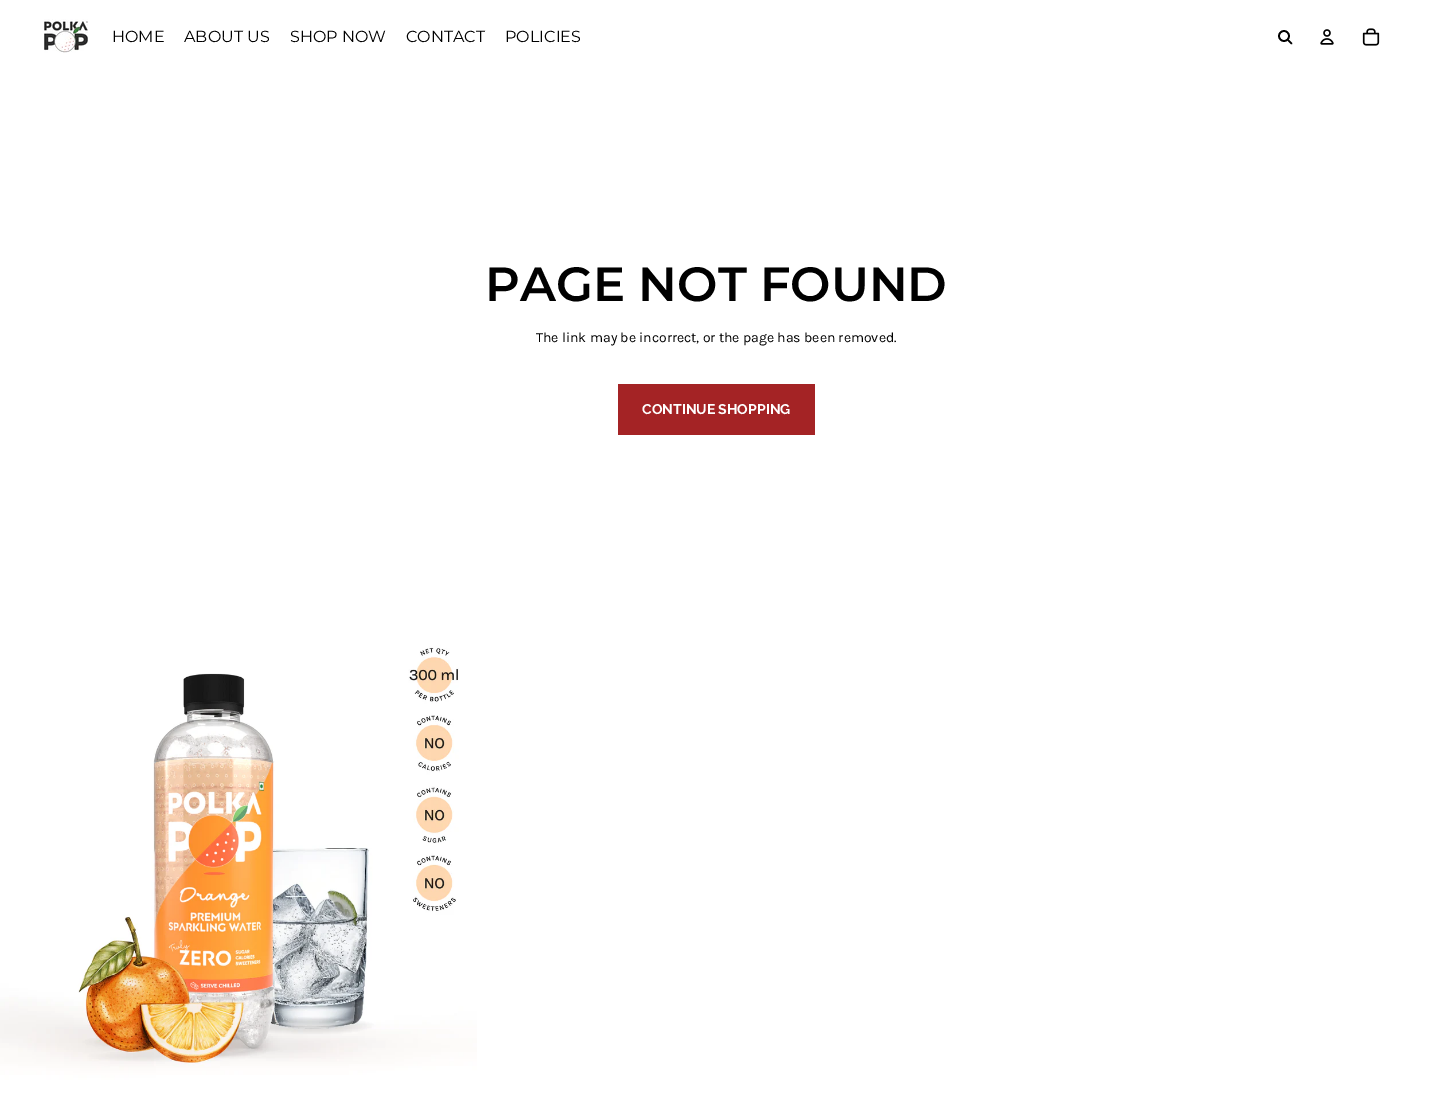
%!PS
<< /PageSize [1433 1093] >> setpagedevice
/rgb { dup -16 bitshift 255 div exch dup -8 bitshift 255 and 255 div exch 255 and 255 div setrgbcolor } def
/font { [ exch dup neg 0 0 3 -1 roll 0 0 ] selectfont } def
/text { moveto show } def
/circle { newpath 0 360 arc closepath } def
/picture { 5 dict begin { /h /w /y /x /name } { exch def } forall
  gsave x y translate w h scale
  w h 8 [w 0 0 h 0 0] name (r) file false 3 colorimage grestore end } def
0 1093 translate 1 -1 scale
4 setmiterlimit
/s1 { /Montserrat-Regular 16 font 16#000000 rgb } def
/s2 { /Montserrat-SemiBold 48 font 16#000000 rgb } def
/s3 { /Karla-Regular 14 font 16#000000 rgb } def
/s4 { /Raleway-Bold 14 font 16#FFFFFF rgb } def
16#FFFFFF rgb
0 0 1433 1093 rectfill
(pic1.raw) 44 19 44 34 picture
s1
(HOME) 112 42 text
(ABOUT US) 184 42 text
(SHOP NOW) 290 42 text
(CONTACT) 406 42 text
(POLICIES) 505 42 text
1.7 setlinewidth
1284 36 5 circle stroke
1 setlinecap
1 setlinejoin
1288 40 moveto 1291.5 43.5 lineto stroke
(pic2.raw) 1320 29 14 16 picture
(pic3.raw) 1362 28 18 18 picture
s2
(PAGE NOT FOUND) 485 301 text
s3
(The link may be incorrect, or the page has been removed.) 536 342 text
16#A42325 rgb
618 384 197 51 rectfill
s4
(CONTINUE SHOPPING) 642 414 text
(pic4.raw) 0 621 477 472 picture
showpage
